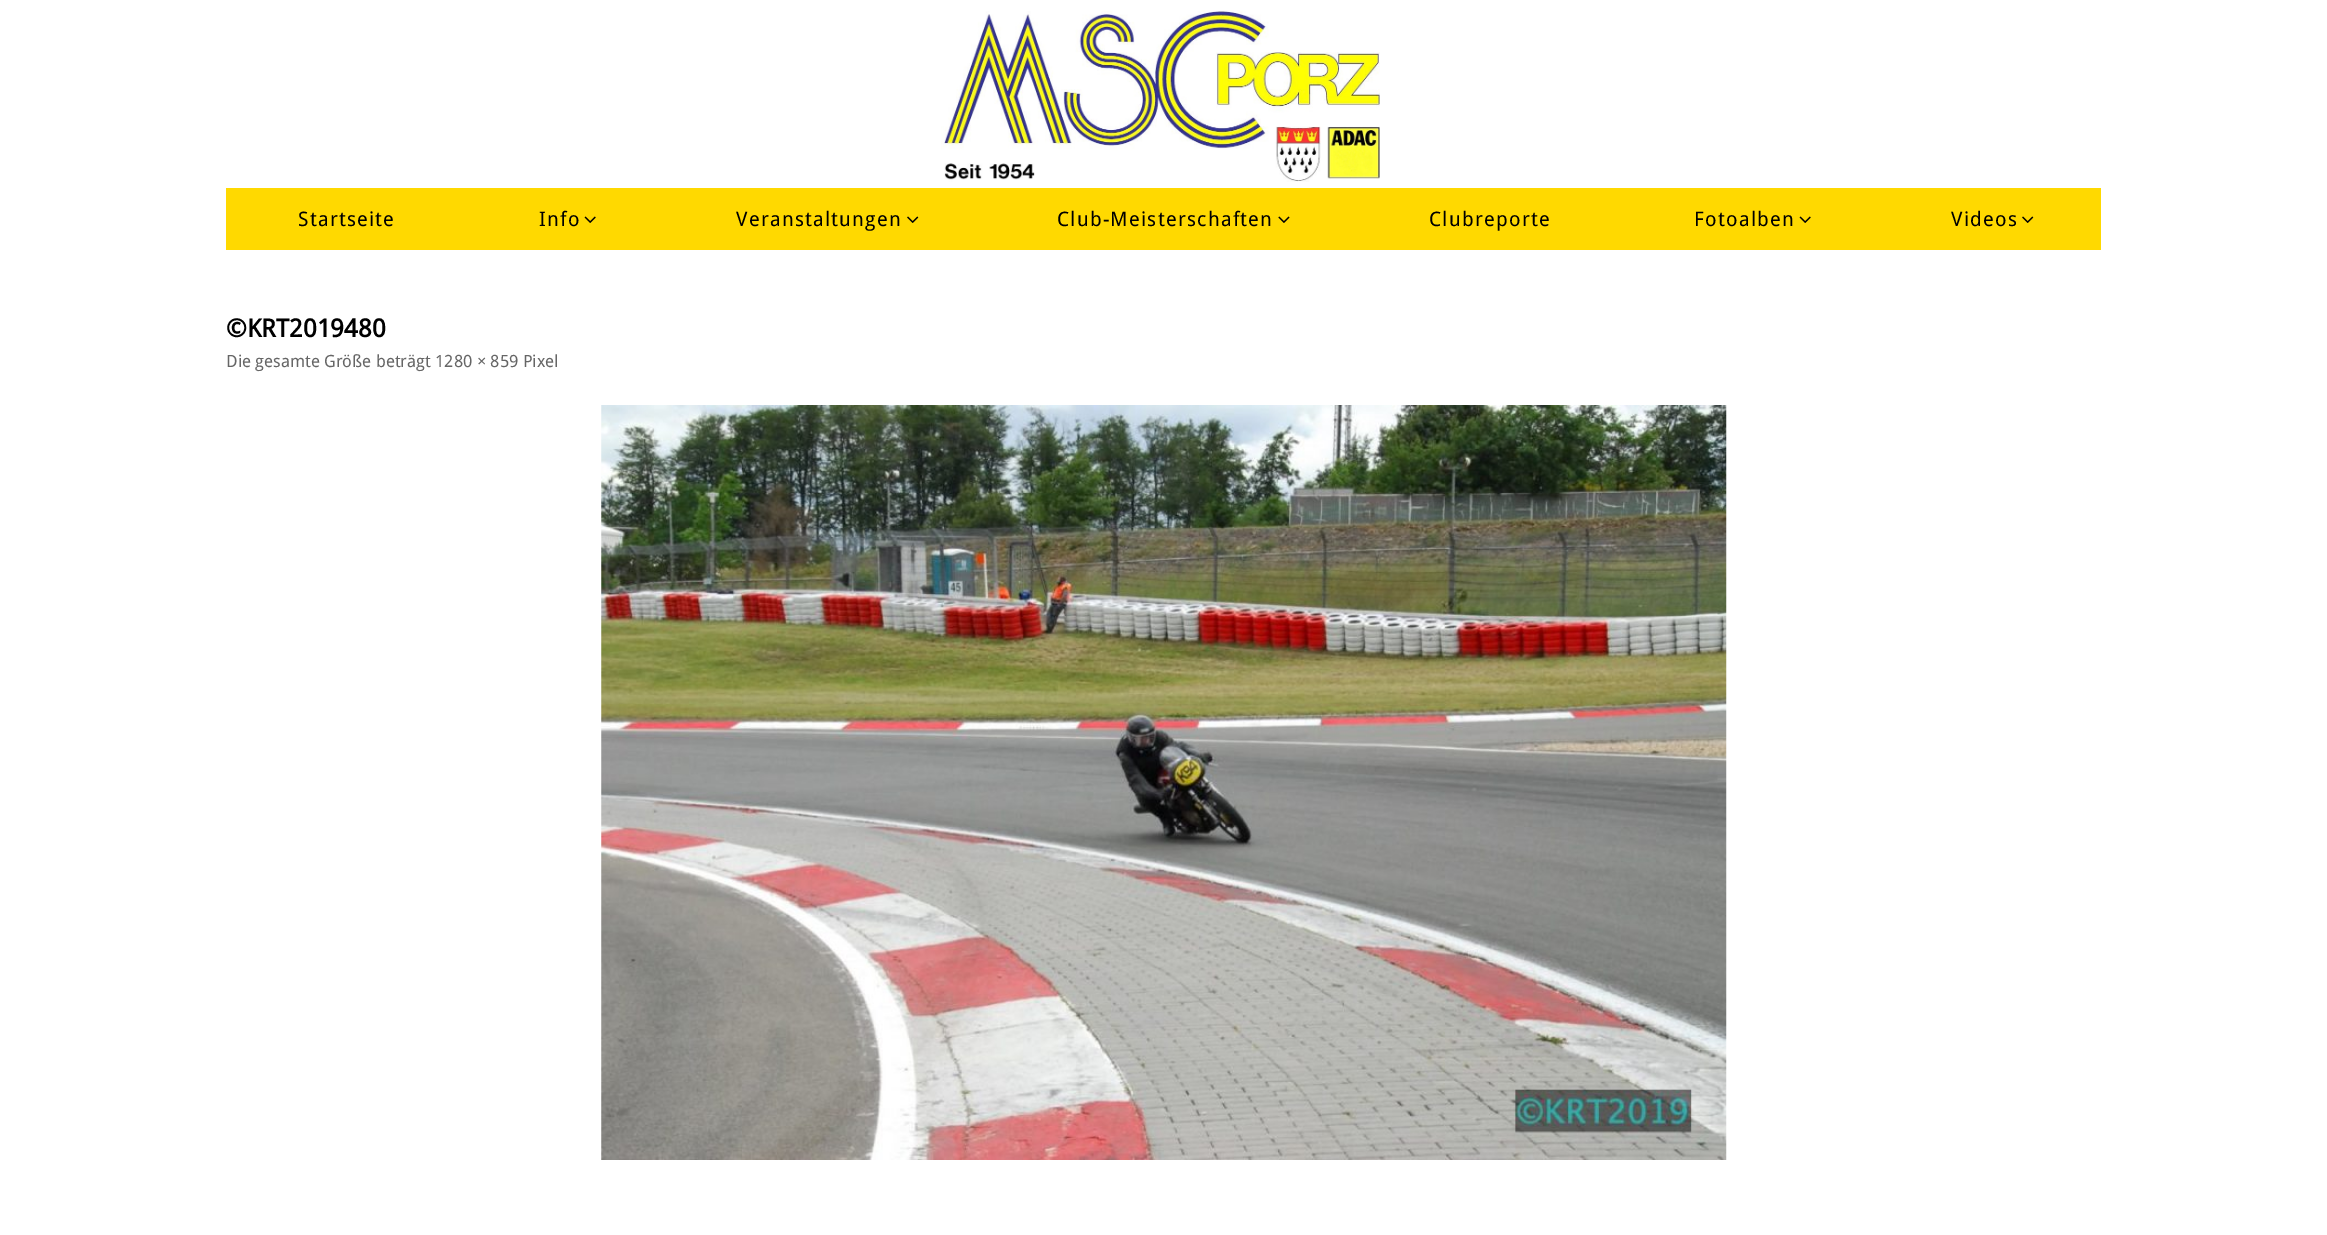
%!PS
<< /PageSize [2327 1235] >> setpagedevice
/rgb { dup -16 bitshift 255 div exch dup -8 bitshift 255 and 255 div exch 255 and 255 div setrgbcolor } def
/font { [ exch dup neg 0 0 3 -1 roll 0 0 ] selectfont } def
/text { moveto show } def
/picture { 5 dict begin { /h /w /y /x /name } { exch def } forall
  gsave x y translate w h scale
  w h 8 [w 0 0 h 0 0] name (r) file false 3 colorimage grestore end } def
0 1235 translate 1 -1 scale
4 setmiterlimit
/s1 { /DroidSans-Bold 25 font 16#000000 rgb } def
/s2 { /DroidSans-Regular 16.9 font 16#666666 rgb } def
16#FFFFFF rgb
0 0 2327 1235 rectfill
(pic1.raw) 941 10 439 172 picture
16#FFD900 rgb
226 188 1875 62 rectfill
/DroidSans-Regular 20 font
16#000000 rgb
298 226 moveto 1.25 0 (Startseite) ashow
539 226 moveto 1.25 0 (Info) ashow
(pic2.raw) 584 216 12 7 picture
736 226 moveto 1.25 0 (Veranstaltungen) ashow
(pic3.raw) 907 216 12 7 picture
1057 226 moveto 1.25 0 (Club-Meisterschaften) ashow
(pic4.raw) 1278 216 12 7 picture
1429 226 moveto 1.25 0 (Clubreporte) ashow
1694 226 moveto 1.25 0 (Fotoalben) ashow
(pic2.raw) 1799 216 12 7 picture
1951 226 moveto 1.25 0 (Videos) ashow
(pic3.raw) 2022 216 12 7 picture
s1
(©KRT2019480) 226 337 text
s2
(Die gesamte Größe beträgt 1280 × 859 Pixel) 226 367 text
(pic5.raw) 601 405 1126 755 picture
showpage
